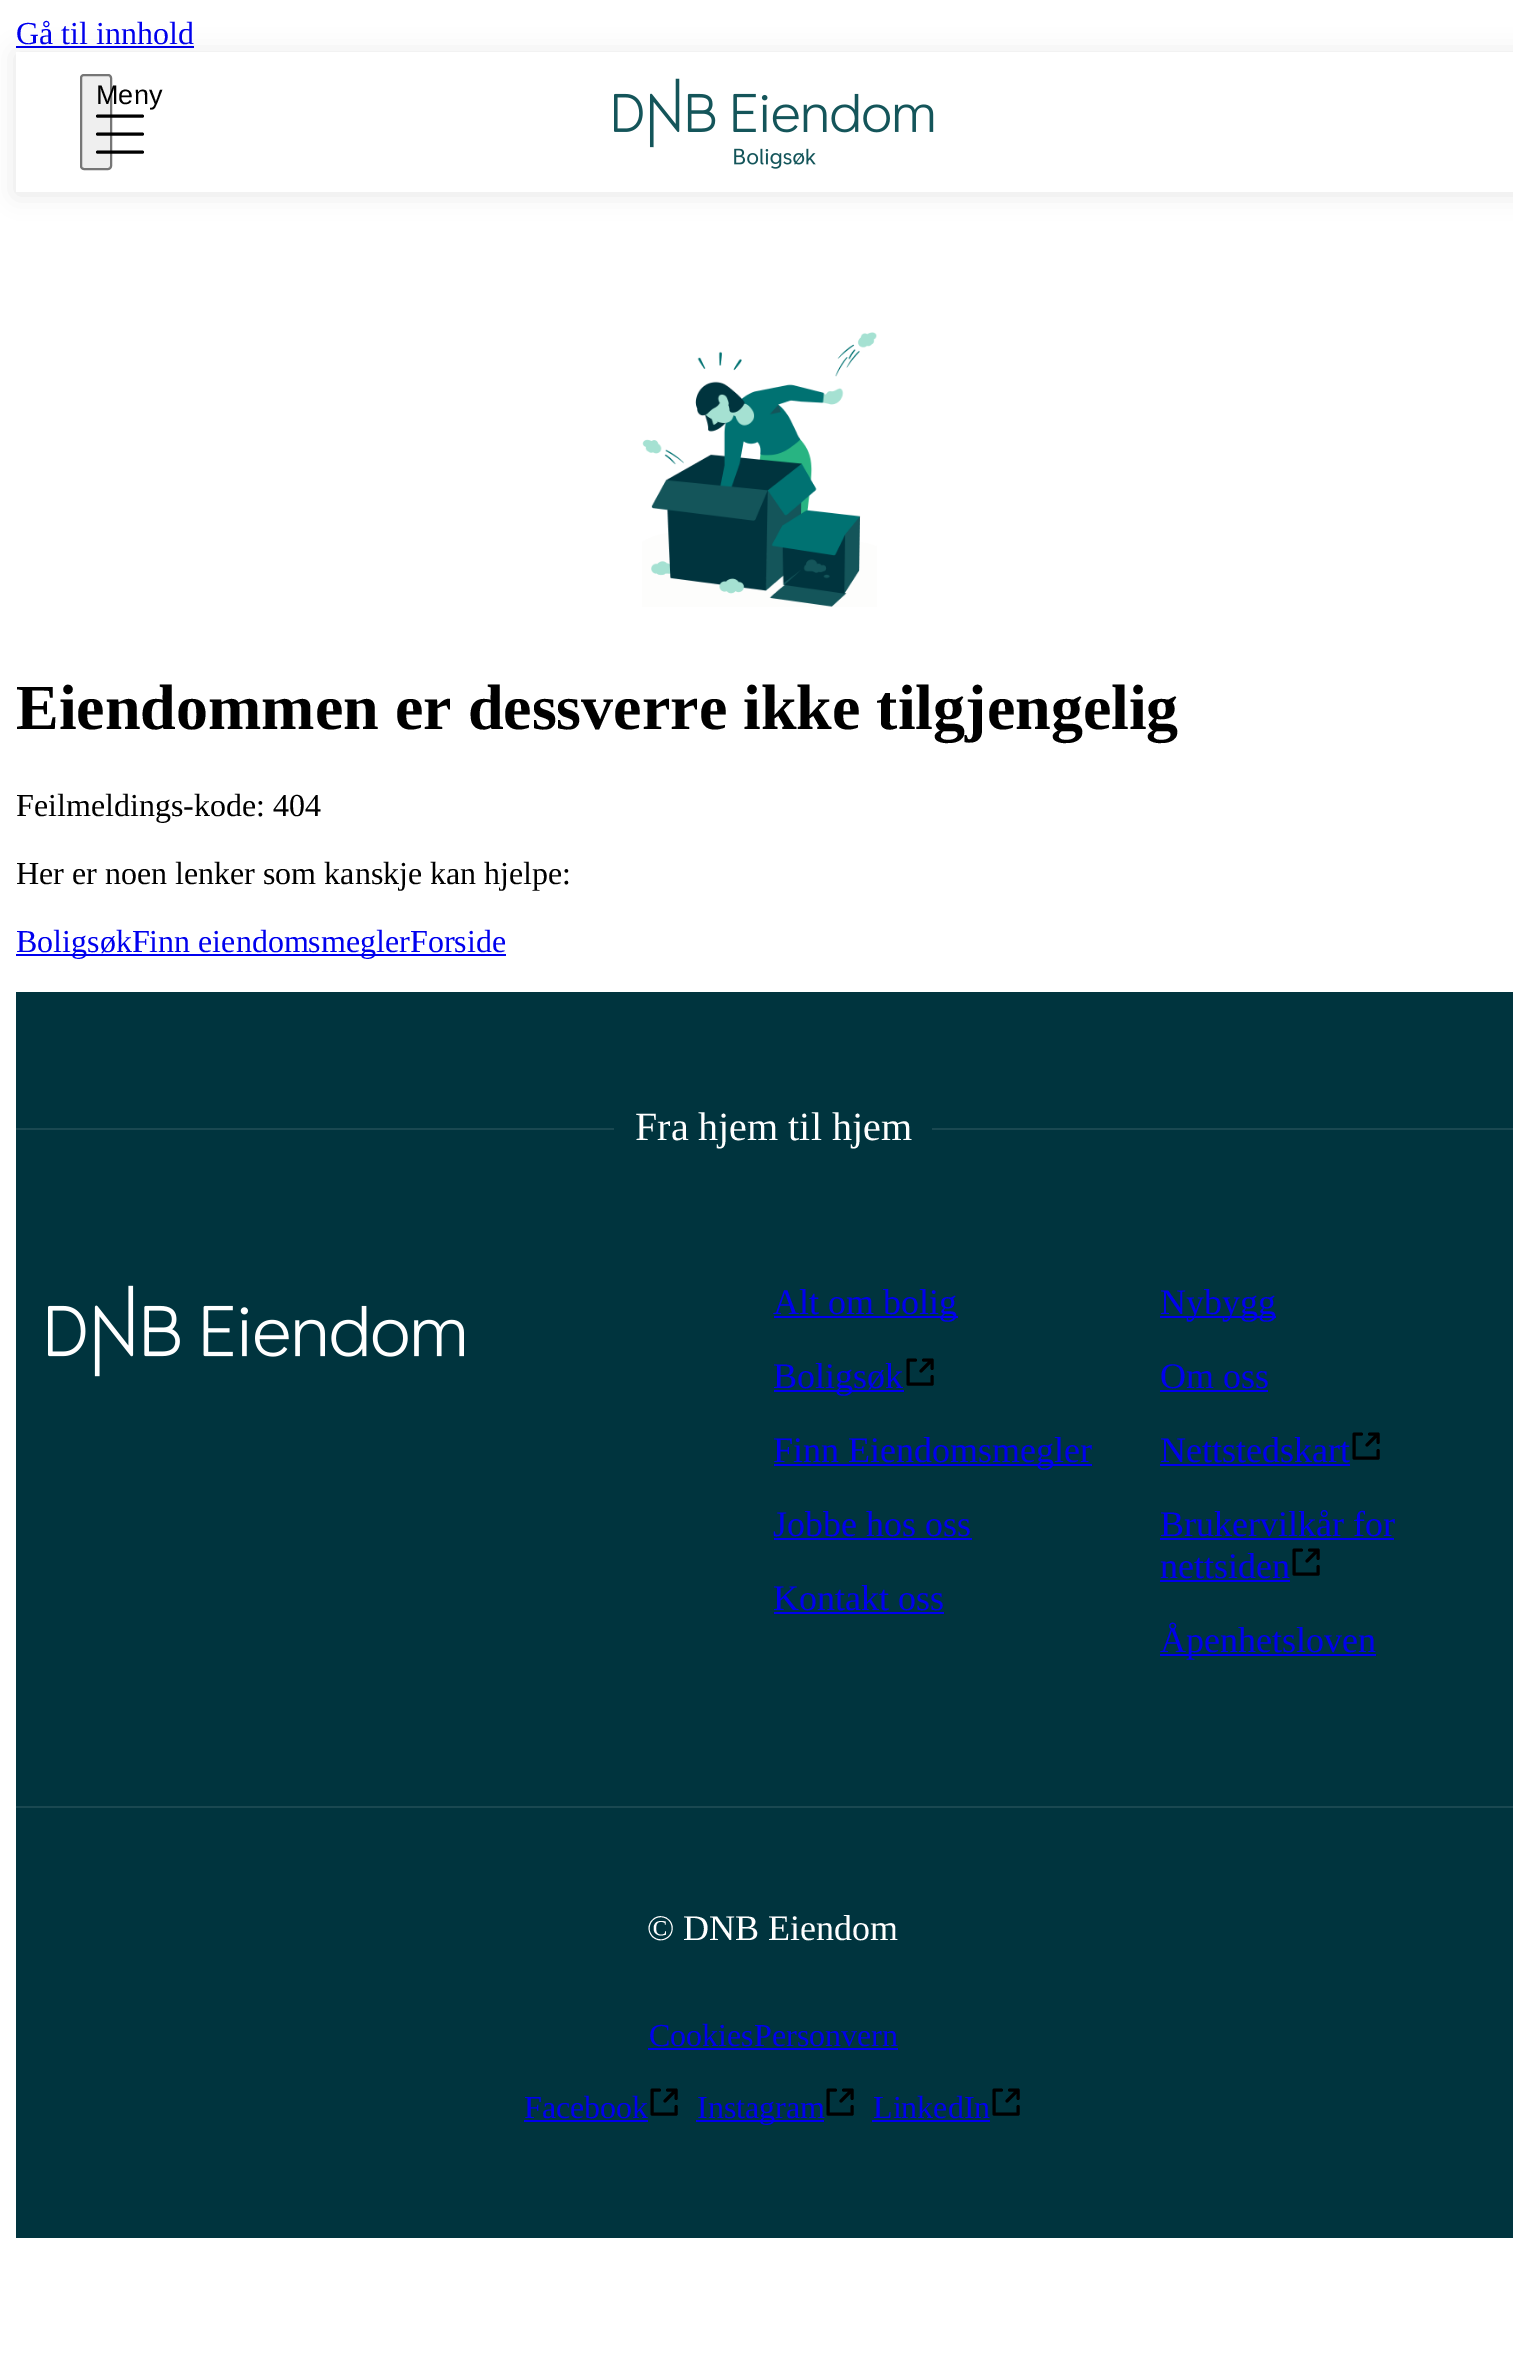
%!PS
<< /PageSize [1513 2357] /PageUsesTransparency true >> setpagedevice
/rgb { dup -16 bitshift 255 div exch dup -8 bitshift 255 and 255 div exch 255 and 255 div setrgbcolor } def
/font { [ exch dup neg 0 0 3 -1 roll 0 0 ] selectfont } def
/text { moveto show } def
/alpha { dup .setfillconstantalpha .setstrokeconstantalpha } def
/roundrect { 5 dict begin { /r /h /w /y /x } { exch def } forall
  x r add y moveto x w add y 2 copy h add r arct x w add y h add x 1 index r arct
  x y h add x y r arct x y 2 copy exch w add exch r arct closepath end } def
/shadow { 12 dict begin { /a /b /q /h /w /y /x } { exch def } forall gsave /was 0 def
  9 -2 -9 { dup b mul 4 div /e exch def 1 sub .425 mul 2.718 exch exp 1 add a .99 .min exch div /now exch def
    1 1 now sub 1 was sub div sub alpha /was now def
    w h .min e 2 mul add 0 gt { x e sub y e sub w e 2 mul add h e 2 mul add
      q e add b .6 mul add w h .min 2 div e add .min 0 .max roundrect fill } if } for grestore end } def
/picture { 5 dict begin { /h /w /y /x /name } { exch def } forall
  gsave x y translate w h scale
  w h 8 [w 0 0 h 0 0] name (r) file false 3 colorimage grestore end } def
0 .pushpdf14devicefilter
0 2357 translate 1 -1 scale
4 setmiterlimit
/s1 { /LiberationSerif-Regular 32 font 16#0000EE rgb } def
/s2 { /LiberationSans-Regular 27 font 16#000000 rgb } def
/s3 { /LiberationSerif-Bold 64 font 16#000000 rgb } def
/s4 { /LiberationSerif-Regular 32 font 16#000000 rgb } def
/s5 { /LiberationSerif-Regular 40 font 16#FFFFFF rgb } def
/s6 { /LiberationSerif-Regular 36 font 16#0000EE rgb } def
/s7 { /LiberationSerif-Regular 36 font 16#FFFFFF rgb } def
16#FFFFFF rgb
0 0 1513 2357 rectfill
s1
(Gå til innhold) 16 44 text
16 46 178 2 rectfill
gsave
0 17 moveto 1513 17 lineto 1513 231 lineto 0 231 lineto closepath 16 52 moveto 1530 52 lineto 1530 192 lineto 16 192 lineto closepath eoclip newpath
16#000000 rgb
16 54 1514 140 0 12 0.1 shadow
grestore
16#EFEFEF rgb
81 75 30 94 3 roundrect gsave fill grestore
16#767676 rgb
2 setlinewidth
stroke
s2
(Meny) 96 104 text
3 setlinewidth
1 setlinecap
97.5 152 moveto 142.5 152 lineto 97.5 134 moveto 142.5 134 lineto 97.5 116 moveto 142.5 116 lineto stroke
(pic1.raw) 614 78 320 91 picture
(pic2.raw) 642 332 235 275 picture
s3
(Eiendommen er dessverre ikke tilgjengelig) 16 729 text
s4
(Feilmeldings-kode: 404) 16 816 text
(Her er noen lenker som kanskje kan hjelpe:) 16 884 text
16#0000EE rgb
16 954 490 2 rectfill
(BoligsøkFinn eiendomsmeglerForside) 16 952 text
16#00343E rgb
16 992 1497 1246 rectfill
16#1A4851 rgb
16 1128 1497 2 rectfill
16#00343E rgb
614 1128 318 2 rectfill
s5
(Fra hjem til hjem) 635 1140 text
(pic3.raw) 48 1285 416 92 picture
16#0000EE rgb
774 1316 184 2 rectfill
s6
(Alt om bolig) 773 1314 text
774 1390 130 2 rectfill
(Boligsøk) 773 1388 text
16#000000 rgb
1 setlinejoin
915.5 1360 moveto 908 1360 lineto 908 1384 lineto 932 1384 lineto 932 1376.5 lineto 921 1371 moveto 932 1360 lineto 932 1360 moveto 923.5 1360 lineto 932 1360 moveto 932 1368.5 lineto stroke
16#0000EE rgb
774 1464 318 2 rectfill
(Finn Eiendomsmegler) 773 1462 text
(Jobbe hos oss) 773 1536 text
774 1538 198 2 rectfill
(Kontakt oss) 773 1610 text
774 1612 170 2 rectfill
1160 1316 116 2 rectfill
(Nybygg) 1160 1314 text
(Om oss) 1160 1388 text
1160 1390 108 2 rectfill
(Nettstedskart) 1160 1462 text
1160 1464 190 2 rectfill
16#000000 rgb
1361.5 1434 moveto 1354 1434 lineto 1354 1458 lineto 1378 1458 lineto 1378 1450.5 lineto 1367 1445 moveto 1378 1434 lineto 1378 1434 moveto 1369.5 1434 lineto 1378 1434 moveto 1378 1442.5 lineto stroke
s6
(Brukervilkår for) 1160 1536 text
1160 1538 234 2 rectfill
(nettsiden) 1160 1578 text
1160 1580 130 2 rectfill
16#000000 rgb
1301.5 1550 moveto 1294 1550 lineto 1294 1574 lineto 1318 1574 lineto 1318 1566.5 lineto 1307 1561 moveto 1318 1550 lineto 1318 1550 moveto 1309.5 1550 lineto 1318 1550 moveto 1318 1558.5 lineto stroke
16#0000EE rgb
1160 1654 216 2 rectfill
(Åpenhetsloven) 1160 1652 text
16#1A4851 rgb
16 1806 1497 2 rectfill
s7
(© DNB Eiendom) 647 1940 text
s1
(CookiesPersonvern) 649 2046 text
648 2048 250 2 rectfill
(Facebook) 524 2118 text
524 2120 124 2 rectfill
16#000000 rgb
659.5 2090 moveto 652 2090 lineto 652 2114 lineto 676 2114 lineto 676 2106.5 lineto 665 2101 moveto 676 2090 lineto 676 2090 moveto 667.5 2090 lineto 676 2090 moveto 676 2098.5 lineto stroke
16#0000EE rgb
696 2120 128 2 rectfill
(Instagram) 697 2118 text
16#000000 rgb
835.5 2090 moveto 828 2090 lineto 828 2114 lineto 852 2114 lineto 852 2106.5 lineto 841 2101 moveto 852 2090 lineto 852 2090 moveto 843.5 2090 lineto 852 2090 moveto 852 2098.5 lineto stroke
s1
(LinkedIn) 873 2118 text
872 2120 118 2 rectfill
16#000000 rgb
1001.5 2090 moveto 994 2090 lineto 994 2114 lineto 1018 2114 lineto 1018 2106.5 lineto 1007 2101 moveto 1018 2090 lineto 1018 2090 moveto 1009.5 2090 lineto 1018 2090 moveto 1018 2098.5 lineto stroke
.poppdf14devicefilter showpage
